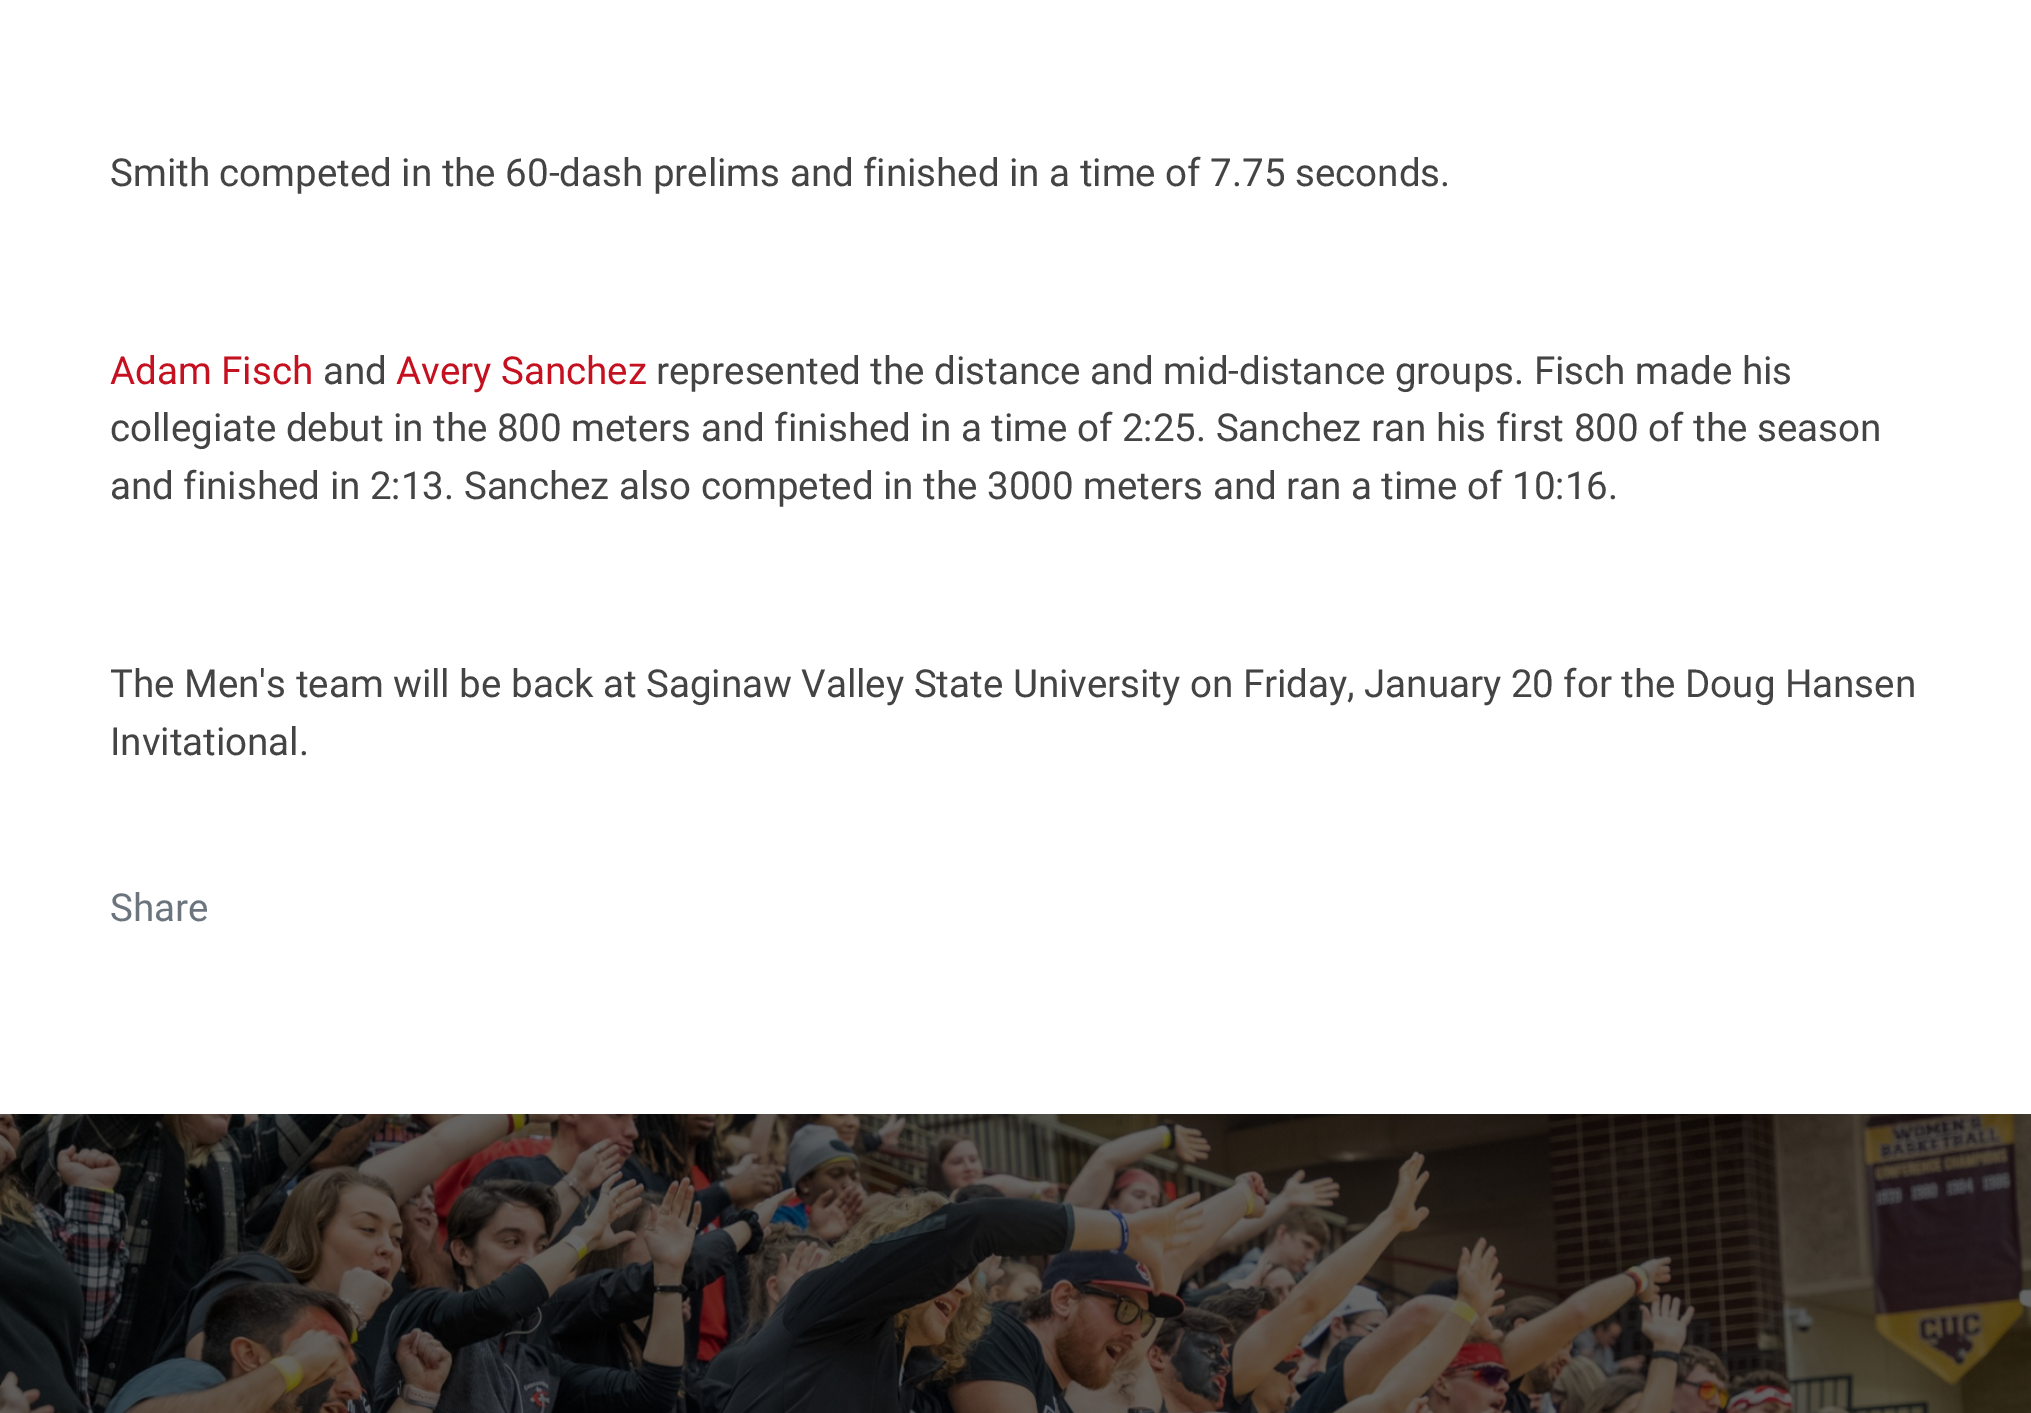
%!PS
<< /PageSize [2031 1413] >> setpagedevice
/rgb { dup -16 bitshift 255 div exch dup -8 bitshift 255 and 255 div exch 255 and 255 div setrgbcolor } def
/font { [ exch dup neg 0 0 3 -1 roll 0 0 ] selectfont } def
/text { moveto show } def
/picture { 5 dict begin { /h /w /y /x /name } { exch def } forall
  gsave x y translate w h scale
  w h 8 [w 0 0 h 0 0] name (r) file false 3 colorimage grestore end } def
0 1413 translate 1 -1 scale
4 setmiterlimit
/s1 { /Roboto-Regular 38.5 font 16#444444 rgb } def
/s2 { /Roboto-Regular 38.5 font 16#C51020 rgb } def
/s3 { /Roboto-Regular 38.5 font 16#6C757D rgb } def
16#FFFFFF rgb
0 0 2031 1413 rectfill
s1
(Smith competed in the 60-dash prelims and finished in a time of 7.75 seconds.) 110 186 text
s2
(Adam Fisch) 110 384 text
s1
(and) 323 384 text
s2
(Avery Sanchez) 396 384 text
s1
(represented the distance and mid-distance groups. Fisch made his) 656 384 text
(collegiate debut in the 800 meters and finished in a time of 2:25. Sanchez ran his first 800 of the season) 110 441 text
(and finished in 2:13. Sanchez also competed in the 3000 meters and ran a time of 10:16.) 110 499 text
(The Men's team will be back at Saginaw Valley State University on Friday, January 20 for the Doug Hansen) 110 697 text
(Invitational.) 110 755 text
s3
(Share) 110 921 text
(pic1.raw) 0 1114 2031 299 picture
showpage
